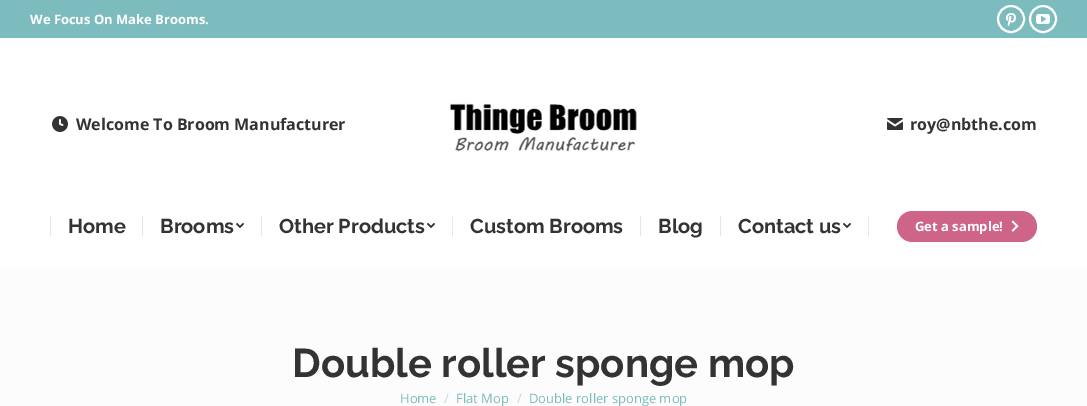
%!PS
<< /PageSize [1087 406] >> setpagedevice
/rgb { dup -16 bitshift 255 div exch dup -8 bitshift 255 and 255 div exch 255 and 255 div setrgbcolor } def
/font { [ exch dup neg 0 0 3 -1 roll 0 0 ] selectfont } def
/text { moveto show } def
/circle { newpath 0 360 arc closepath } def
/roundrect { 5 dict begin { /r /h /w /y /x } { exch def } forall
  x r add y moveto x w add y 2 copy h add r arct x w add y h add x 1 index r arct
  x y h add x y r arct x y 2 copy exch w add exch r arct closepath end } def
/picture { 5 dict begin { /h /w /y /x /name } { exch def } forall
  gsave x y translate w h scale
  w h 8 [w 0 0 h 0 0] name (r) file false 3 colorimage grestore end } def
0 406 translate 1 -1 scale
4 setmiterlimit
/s1 { /OpenSans-Bold 13 font 16#FFFFFF rgb } def
/s2 { /OpenSans-Bold 16 font 16#333333 rgb } def
/s3 { /Raleway-Bold 20 font 16#333333 rgb } def
/s4 { /Raleway-Bold 40 font 16#333333 rgb } def
/s5 { /OpenSans-Regular 13 font 16#7DBCBE rgb } def
/s6 { /OpenSans-Regular 13 font 16#BDDCDD rgb } def
16#FCFCFC rgb
0 0 1087 406 rectfill
16#FFFFFF rgb
0 38 1087 230 rectfill
16#7DBCBE rgb
0 0 1087 38 rectfill
s1
(We Focus On Make Brooms.) 30 24 text
2 setlinewidth
1011 19 13 circle stroke
(pic1.raw) 1005 13 12 13 picture
1043 19 13 circle stroke
(pic2.raw) 1036 14 14 10 picture
(pic3.raw) 52 116 16 16 picture
s2
(Welcome To Broom Manufacturer) 76 130 text
(pic4.raw) 450 103 187 49 picture
(pic5.raw) 887 118 16 12 picture
(roy@nbthe.com) 910 130 text
16#E6E6E6 rgb
50 216 1 20 rectfill
s3
(Home) 68 233 text
16#E6E6E6 rgb
142 216 1 20 rectfill
s3
(Brooms) 160 233 text
(pic6.raw) 236 223 8 5 picture
16#E6E6E6 rgb
261 216 1 20 rectfill
s3
(Other Products) 279 233 text
(pic6.raw) 427 223 8 5 picture
16#E6E6E6 rgb
452 216 1 20 rectfill
s3
(Custom Brooms) 470 233 text
16#E6E6E6 rgb
640 216 1 20 rectfill
s3
(Blog) 658 233 text
16#E6E6E6 rgb
720 216 1 20 rectfill
s3
(Contact us) 738 233 text
(pic6.raw) 843 223 8 5 picture
16#E6E6E6 rgb
868 216 1 20 rectfill
16#CF6489 rgb
897 211 140 31 15.5 roundrect fill
s1
(Get a sample!) 915 231 text
(pic7.raw) 1011 220 8 12 picture
s4
(Double roller sponge mop) 292 377 text
s5
(Home) 400 403 text
s6
(/) 444 403 text
s5
(Flat Mop) 456 403 text
s6
(/) 517 403 text
s5
(Double roller sponge mop) 529 403 text
showpage
